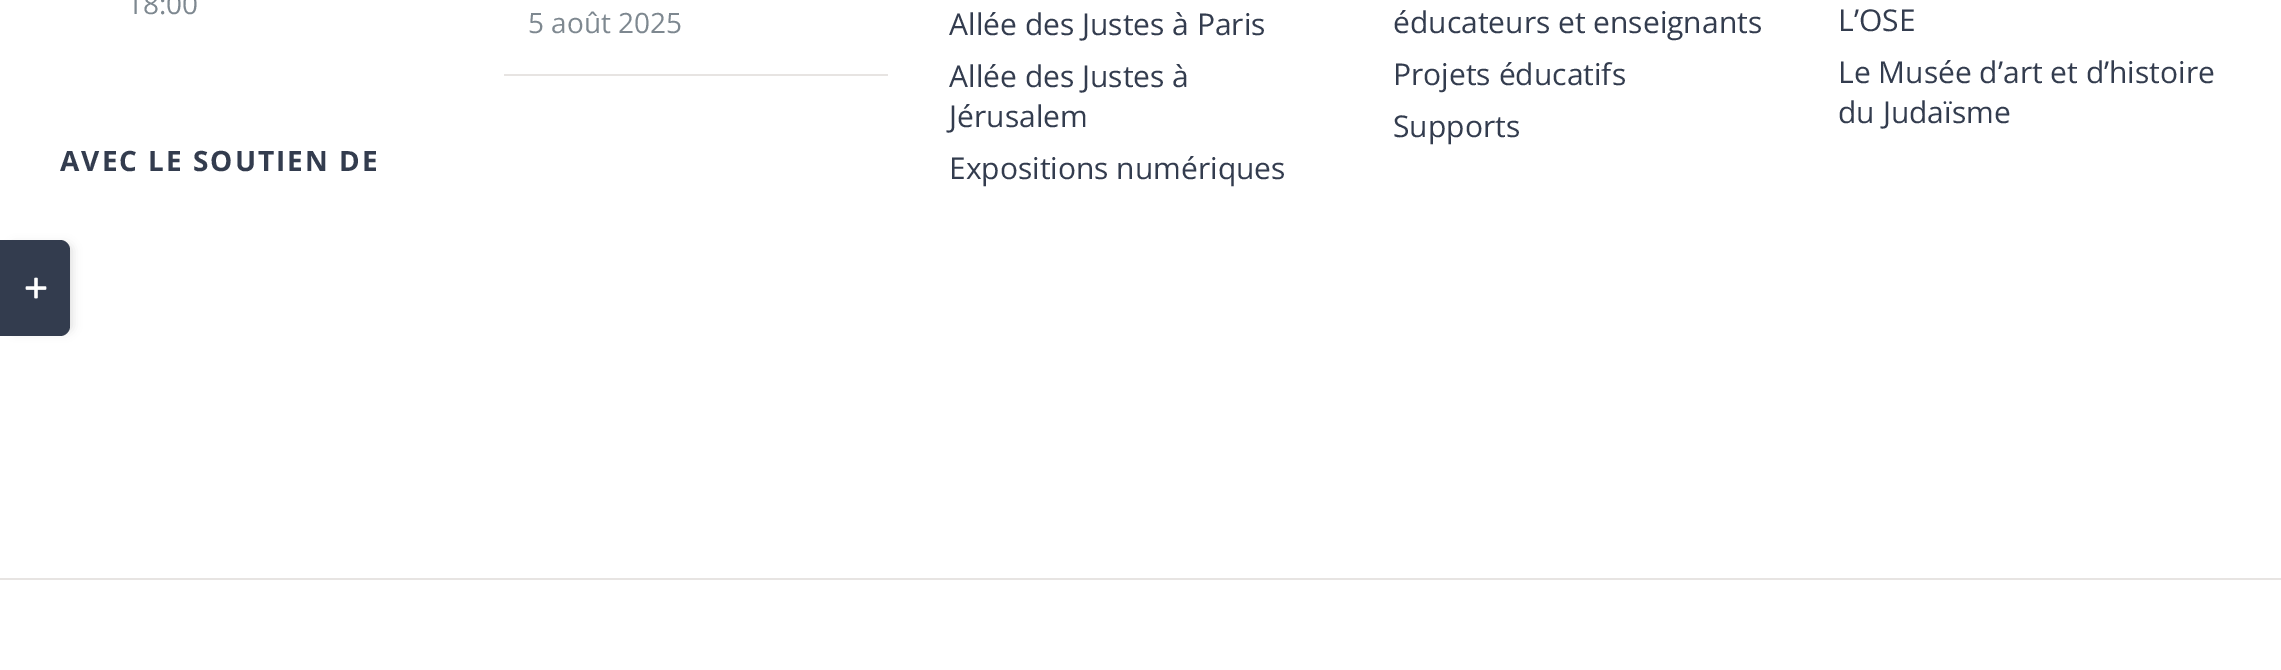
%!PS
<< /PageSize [2281 670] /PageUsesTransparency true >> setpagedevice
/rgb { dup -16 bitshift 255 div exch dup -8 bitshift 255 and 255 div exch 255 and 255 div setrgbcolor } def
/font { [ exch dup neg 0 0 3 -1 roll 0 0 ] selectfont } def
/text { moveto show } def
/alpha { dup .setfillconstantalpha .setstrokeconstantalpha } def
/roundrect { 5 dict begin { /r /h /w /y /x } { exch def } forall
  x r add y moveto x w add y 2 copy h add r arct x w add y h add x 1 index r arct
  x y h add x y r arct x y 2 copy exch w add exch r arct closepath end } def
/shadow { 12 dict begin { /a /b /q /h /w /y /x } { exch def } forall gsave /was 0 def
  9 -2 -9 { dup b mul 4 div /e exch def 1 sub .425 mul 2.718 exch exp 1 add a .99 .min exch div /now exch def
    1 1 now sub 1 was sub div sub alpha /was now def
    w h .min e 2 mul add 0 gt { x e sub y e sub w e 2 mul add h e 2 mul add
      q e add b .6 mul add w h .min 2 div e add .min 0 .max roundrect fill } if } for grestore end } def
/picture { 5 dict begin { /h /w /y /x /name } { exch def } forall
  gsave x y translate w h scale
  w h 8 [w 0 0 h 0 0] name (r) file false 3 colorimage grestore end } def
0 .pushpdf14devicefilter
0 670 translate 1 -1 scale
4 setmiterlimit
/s1 { /OpenSans-Regular 28 font 16#7E8890 rgb } def
/s2 { /OpenSans-Regular 30 font 16#333C4E rgb } def
16#FFFFFF rgb
0 0 2281 670 rectfill
s1
(18:00) 127 14 text
/OpenSans-Bold 28 font
16#333C4E rgb
60 171 moveto 2 0 (AVEC LE SOUTIEN DE) ashow
16#E7E4E2 rgb
504 74 384 2 rectfill
s1
(5 août 2025) 528 33 text
s2
(Allée des Justes à Paris) 949 35 text
(Allée des Justes à) 949 87 text
(Jérusalem) 949 127 text
(Expositions numériques) 949 179 text
(éducateurs et enseignants) 1393 33 text
(Projets éducatifs) 1393 85 text
(Supports) 1393 137 text
(L’OSE) 1838 31 text
(Le Musée d’art et d’histoire) 1838 83 text
(du Judaïsme) 1838 123 text
16#E7E4E2 rgb
0 578 2281 2 rectfill
16#000000 rgb
10 244 62 88 6 5 0.14 shadow
16#333C4E rgb
0 240 moveto 60 240 lineto 65.5 240 70 244.5 70 250 curveto 70 326 lineto 70 331.5 65.5 336 60 336 curveto 0 336 lineto closepath fill
(pic1.raw) 25 277 22 22 picture
.poppdf14devicefilter showpage
